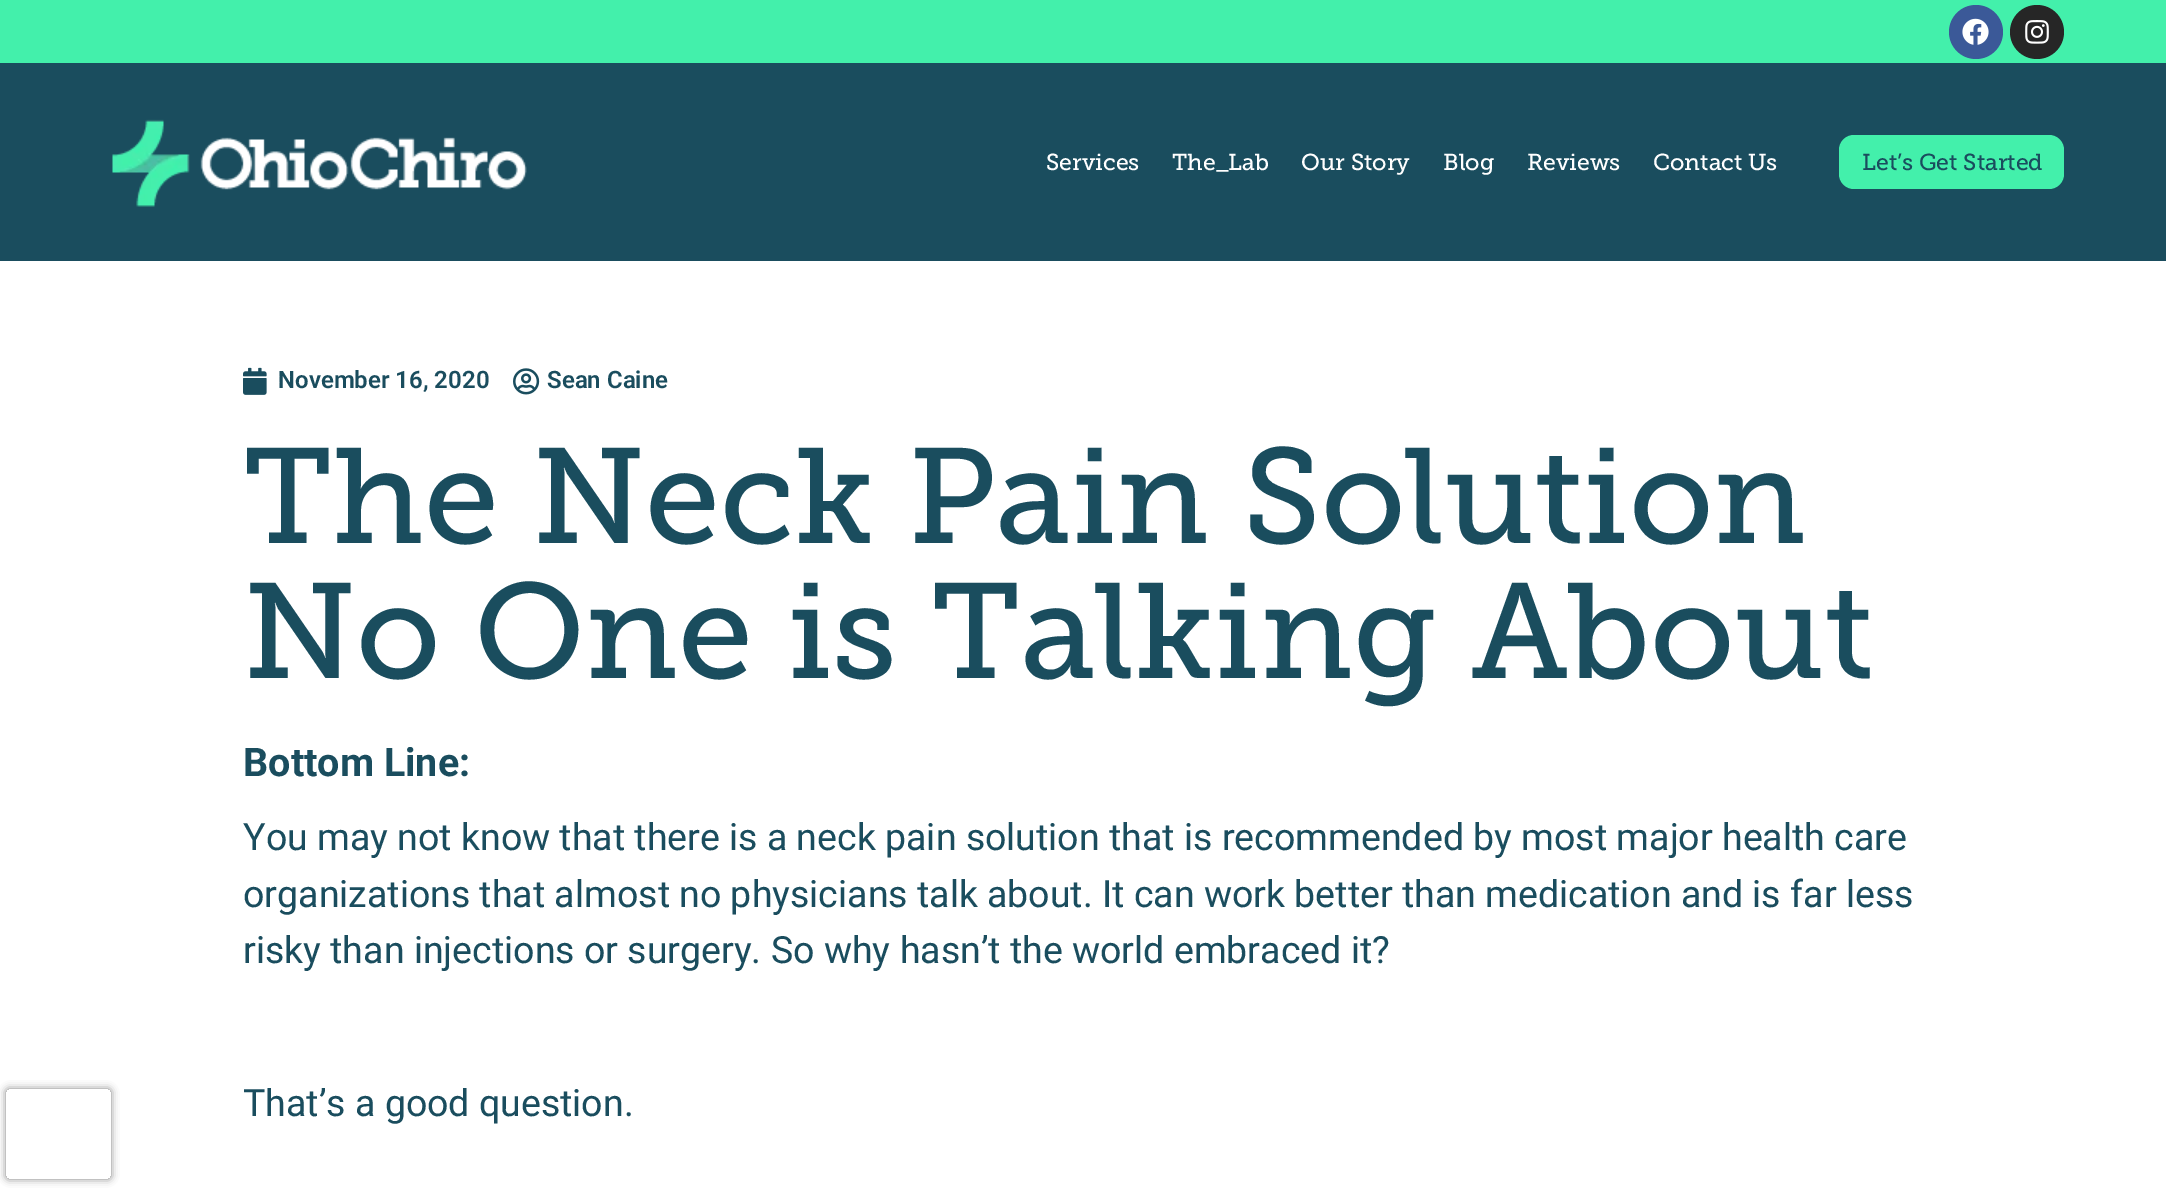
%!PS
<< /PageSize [2166 1199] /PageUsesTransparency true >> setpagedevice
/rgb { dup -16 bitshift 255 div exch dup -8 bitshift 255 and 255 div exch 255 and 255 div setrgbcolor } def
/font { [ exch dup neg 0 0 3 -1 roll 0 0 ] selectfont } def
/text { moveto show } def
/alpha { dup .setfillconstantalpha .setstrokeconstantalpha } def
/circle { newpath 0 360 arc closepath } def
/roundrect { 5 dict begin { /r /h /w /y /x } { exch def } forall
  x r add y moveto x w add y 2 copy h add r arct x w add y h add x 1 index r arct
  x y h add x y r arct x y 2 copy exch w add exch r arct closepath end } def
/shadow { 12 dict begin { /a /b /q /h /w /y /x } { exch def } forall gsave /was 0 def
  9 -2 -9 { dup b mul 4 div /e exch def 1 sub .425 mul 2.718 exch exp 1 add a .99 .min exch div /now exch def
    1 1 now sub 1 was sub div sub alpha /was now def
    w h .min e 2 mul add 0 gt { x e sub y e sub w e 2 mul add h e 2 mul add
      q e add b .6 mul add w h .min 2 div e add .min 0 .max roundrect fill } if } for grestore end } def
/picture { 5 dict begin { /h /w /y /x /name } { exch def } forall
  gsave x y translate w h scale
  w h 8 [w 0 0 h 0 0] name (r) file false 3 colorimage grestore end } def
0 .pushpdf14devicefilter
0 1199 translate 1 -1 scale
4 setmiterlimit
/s1 { /MuseoSlab-Regular 23 font 16#FFFFFF rgb } def
/s2 { /MuseoSlab-Regular 23 font 16#1A4D5E rgb } def
/s3 { /Roboto-SemiBold 24 font 16#1A4D5E rgb } def
/s4 { /MuseoSlab-Regular 135 font 16#1A4D5E rgb } def
/s5 { /Roboto-Bold 39.5 font 16#1A4D5E rgb } def
/s6 { /Roboto-Regular 37.5 font 16#1A4D5E rgb } def
16#FFFFFF rgb
0 0 2166 1199 rectfill
16#43F0AB rgb
0 0 2166 63 rectfill
16#3B5998 rgb
1976 32 27 circle fill
(pic1.raw) 1962 18 27 27 picture
16#262626 rgb
2037 32 27 circle fill
(pic2.raw) 2025 20 24 24 picture
16#1A4D5E rgb
0 63 2166 198 rectfill
(pic3.raw) 112 119 415 88 picture
s1
(Services) 1046 170 text
(The_Lab) 1172 170 text
(Our Story) 1301 170 text
(Blog) 1443 170 text
(Reviews) 1527 170 text
(Contact Us) 1653 170 text
16#43F0AB rgb
1839 135 225 54 15 roundrect fill
s2
(Let’s Get Started) 1862 170 text
gsave
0 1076 moveto 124 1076 lineto 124 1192 lineto 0 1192 lineto closepath 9 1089 moveto 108 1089 lineto 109.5 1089 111 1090.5 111 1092 curveto 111 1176 lineto 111 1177.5 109.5 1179 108 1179 curveto 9 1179 lineto 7.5 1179 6 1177.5 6 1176 curveto 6 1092 lineto 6 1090.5 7.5 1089 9 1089 curveto closepath eoclip newpath
16#808080 rgb
6 1089 105 90 3 4 1 shadow
grestore
(pic4.raw) 243 367 24 28 picture
s3
(November 16, 2020) 278 388 text
(pic5.raw) 513 368 27 27 picture
(Sean Caine) 547 388 text
s4
(The Neck Pain Solution) 243 543 text
(No One is Talking About) 243 678 text
s5
(Bottom Line:) 243 776 text
s6
(You may not know that there is a neck pain solution that is recommended by most major health care) 243 850 text
(organizations that almost no physicians talk about. It can work better than medication and is far less) 243 907 text
(risky than injections or surgery. So why hasn’t the world embraced it?) 243 963 text
(That’s a good question.) 243 1116 text
.poppdf14devicefilter showpage
